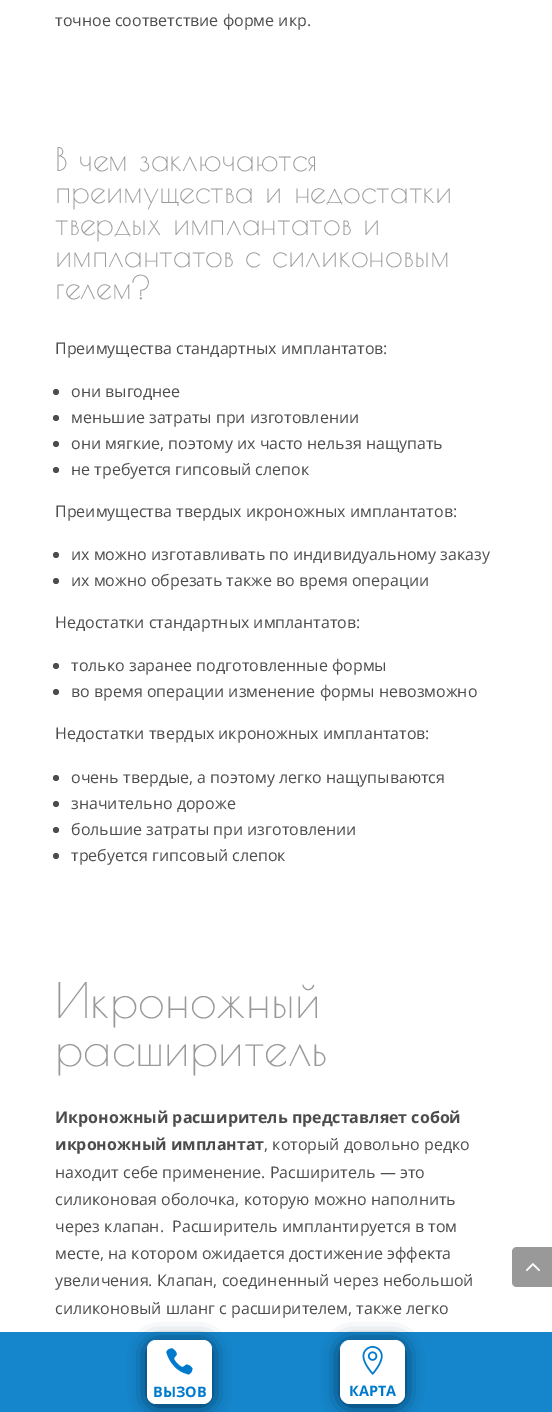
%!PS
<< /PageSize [552 1412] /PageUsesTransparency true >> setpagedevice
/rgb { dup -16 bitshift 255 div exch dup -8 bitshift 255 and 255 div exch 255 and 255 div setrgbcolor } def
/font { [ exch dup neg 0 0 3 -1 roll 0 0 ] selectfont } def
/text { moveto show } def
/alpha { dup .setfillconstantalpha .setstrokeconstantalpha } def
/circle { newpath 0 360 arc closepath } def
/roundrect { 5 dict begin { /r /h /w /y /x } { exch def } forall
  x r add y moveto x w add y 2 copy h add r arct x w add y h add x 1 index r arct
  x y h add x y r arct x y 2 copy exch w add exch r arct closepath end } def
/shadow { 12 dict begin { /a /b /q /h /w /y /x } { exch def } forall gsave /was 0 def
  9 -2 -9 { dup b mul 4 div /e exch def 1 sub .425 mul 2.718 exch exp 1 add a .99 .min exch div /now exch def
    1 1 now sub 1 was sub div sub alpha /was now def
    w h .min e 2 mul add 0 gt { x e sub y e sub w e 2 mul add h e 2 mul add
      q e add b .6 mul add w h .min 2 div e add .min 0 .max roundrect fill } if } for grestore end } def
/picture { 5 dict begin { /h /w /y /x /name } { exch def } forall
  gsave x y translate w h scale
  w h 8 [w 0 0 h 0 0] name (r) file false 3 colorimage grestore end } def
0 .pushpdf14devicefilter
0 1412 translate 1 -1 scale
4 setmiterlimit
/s1 { /OpenSans-Regular 16 font 16#4C4C4C rgb } def
/s2 { /PoiretOne-Regular 32 font 16#999999 rgb } def
/s3 { /PoiretOne-Regular 48 font 16#999999 rgb } def
/s4 { /OpenSans-Bold 16 font 16#4C4C4C rgb } def
/s5 { /OpenSans-Bold 14.5 font 16#007ACC rgb } def
16#FFFFFF rgb
0 0 552 1412 rectfill
s1
(точное соответствие форме икр.) 55 26 text
s2
(В чем заключаются) 55 171 text
(преимущества и недостатки) 55 203 text
(твердых имплантатов и) 55 235 text
(имплантатов с силиконовым) 55 267 text
(гелем?) 55 299 text
s1
(Преимущества стандартных имплантатов:) 55 354 text
56 392 3 circle fill
(они выгоднее) 71 397 text
56 418 3 circle fill
(меньшие затраты при изготовлении) 71 423 text
56 444 3 circle fill
(они мягкие, поэтому их часто нельзя нащупать) 71 449 text
56 470 3 circle fill
(не требуется гипсовый слепок) 71 475 text
(Преимущества твердых икроножных имплантатов:) 55 517 text
56 555 3 circle fill
(их можно изготавливать по индивидуальному заказу) 71 560 text
56 581 3 circle fill
(их можно обрезать также во время операции) 71 586 text
(Недостатки стандартных имплантатов:) 55 628 text
56 666 3 circle fill
(только заранее подготовленные формы) 71 671 text
56 692 3 circle fill
(во время операции изменение формы невозможно) 71 697 text
(Недостатки твердых икроножных имплантатов:) 55 739 text
56 778 3 circle fill
(очень твердые, а поэтому легко нащупываются) 71 783 text
56 804 3 circle fill
(значительно дороже) 71 809 text
56 830 3 circle fill
(большие затраты при изготовлении) 71 835 text
56 856 3 circle fill
(требуется гипсовый слепок) 71 861 text
s3
(Икроножный) 55 1018 text
(расширитель) 55 1066 text
s4
(Икроножный расширитель представляет собой) 55 1123 text
(икроножный имплантат) 55 1150 text
s1
(, который довольно редко) 264 1150 text
(находит себе применение. Расширитель — это) 55 1178 text
(силиконовая оболочка, которую можно наполнить) 55 1205 text
(через клапан.  Расширитель имплантируется в том) 55 1232 text
(месте, на котором ожидается достижение эффекта) 55 1259 text
(увеличения. Клапан, соединенный через небольшой) 55 1286 text
(силиконовый шланг с расширителем, также легко) 55 1314 text
16#1686CC rgb
0 1332 552 80 rectfill
16#002A4C rgb
147 1342 65 64 9 9 1 shadow
16#FFFFFF rgb
147 1340 65 64 9 roundrect fill
(pic1.raw) 166 1348 27 27 picture
s5
(ВЫЗОВ) 153 1397 text
16#002A4C rgb
340 1342 65 64 10 9 1 shadow
16#FFFFFF rgb
340 1340 65 64 10 roundrect fill
(pic2.raw) 362 1346 21 29 picture
s5
(КАРТА) 349 1396 text
16#999999 rgb
517 1247 moveto 552 1247 lineto 552 1287 lineto 517 1287 lineto 514 1287 512 1285 512 1282 curveto 512 1252 lineto 512 1249 514 1247 517 1247 curveto closepath fill
(pic3.raw) 526 1263 14 8 picture
.poppdf14devicefilter showpage
